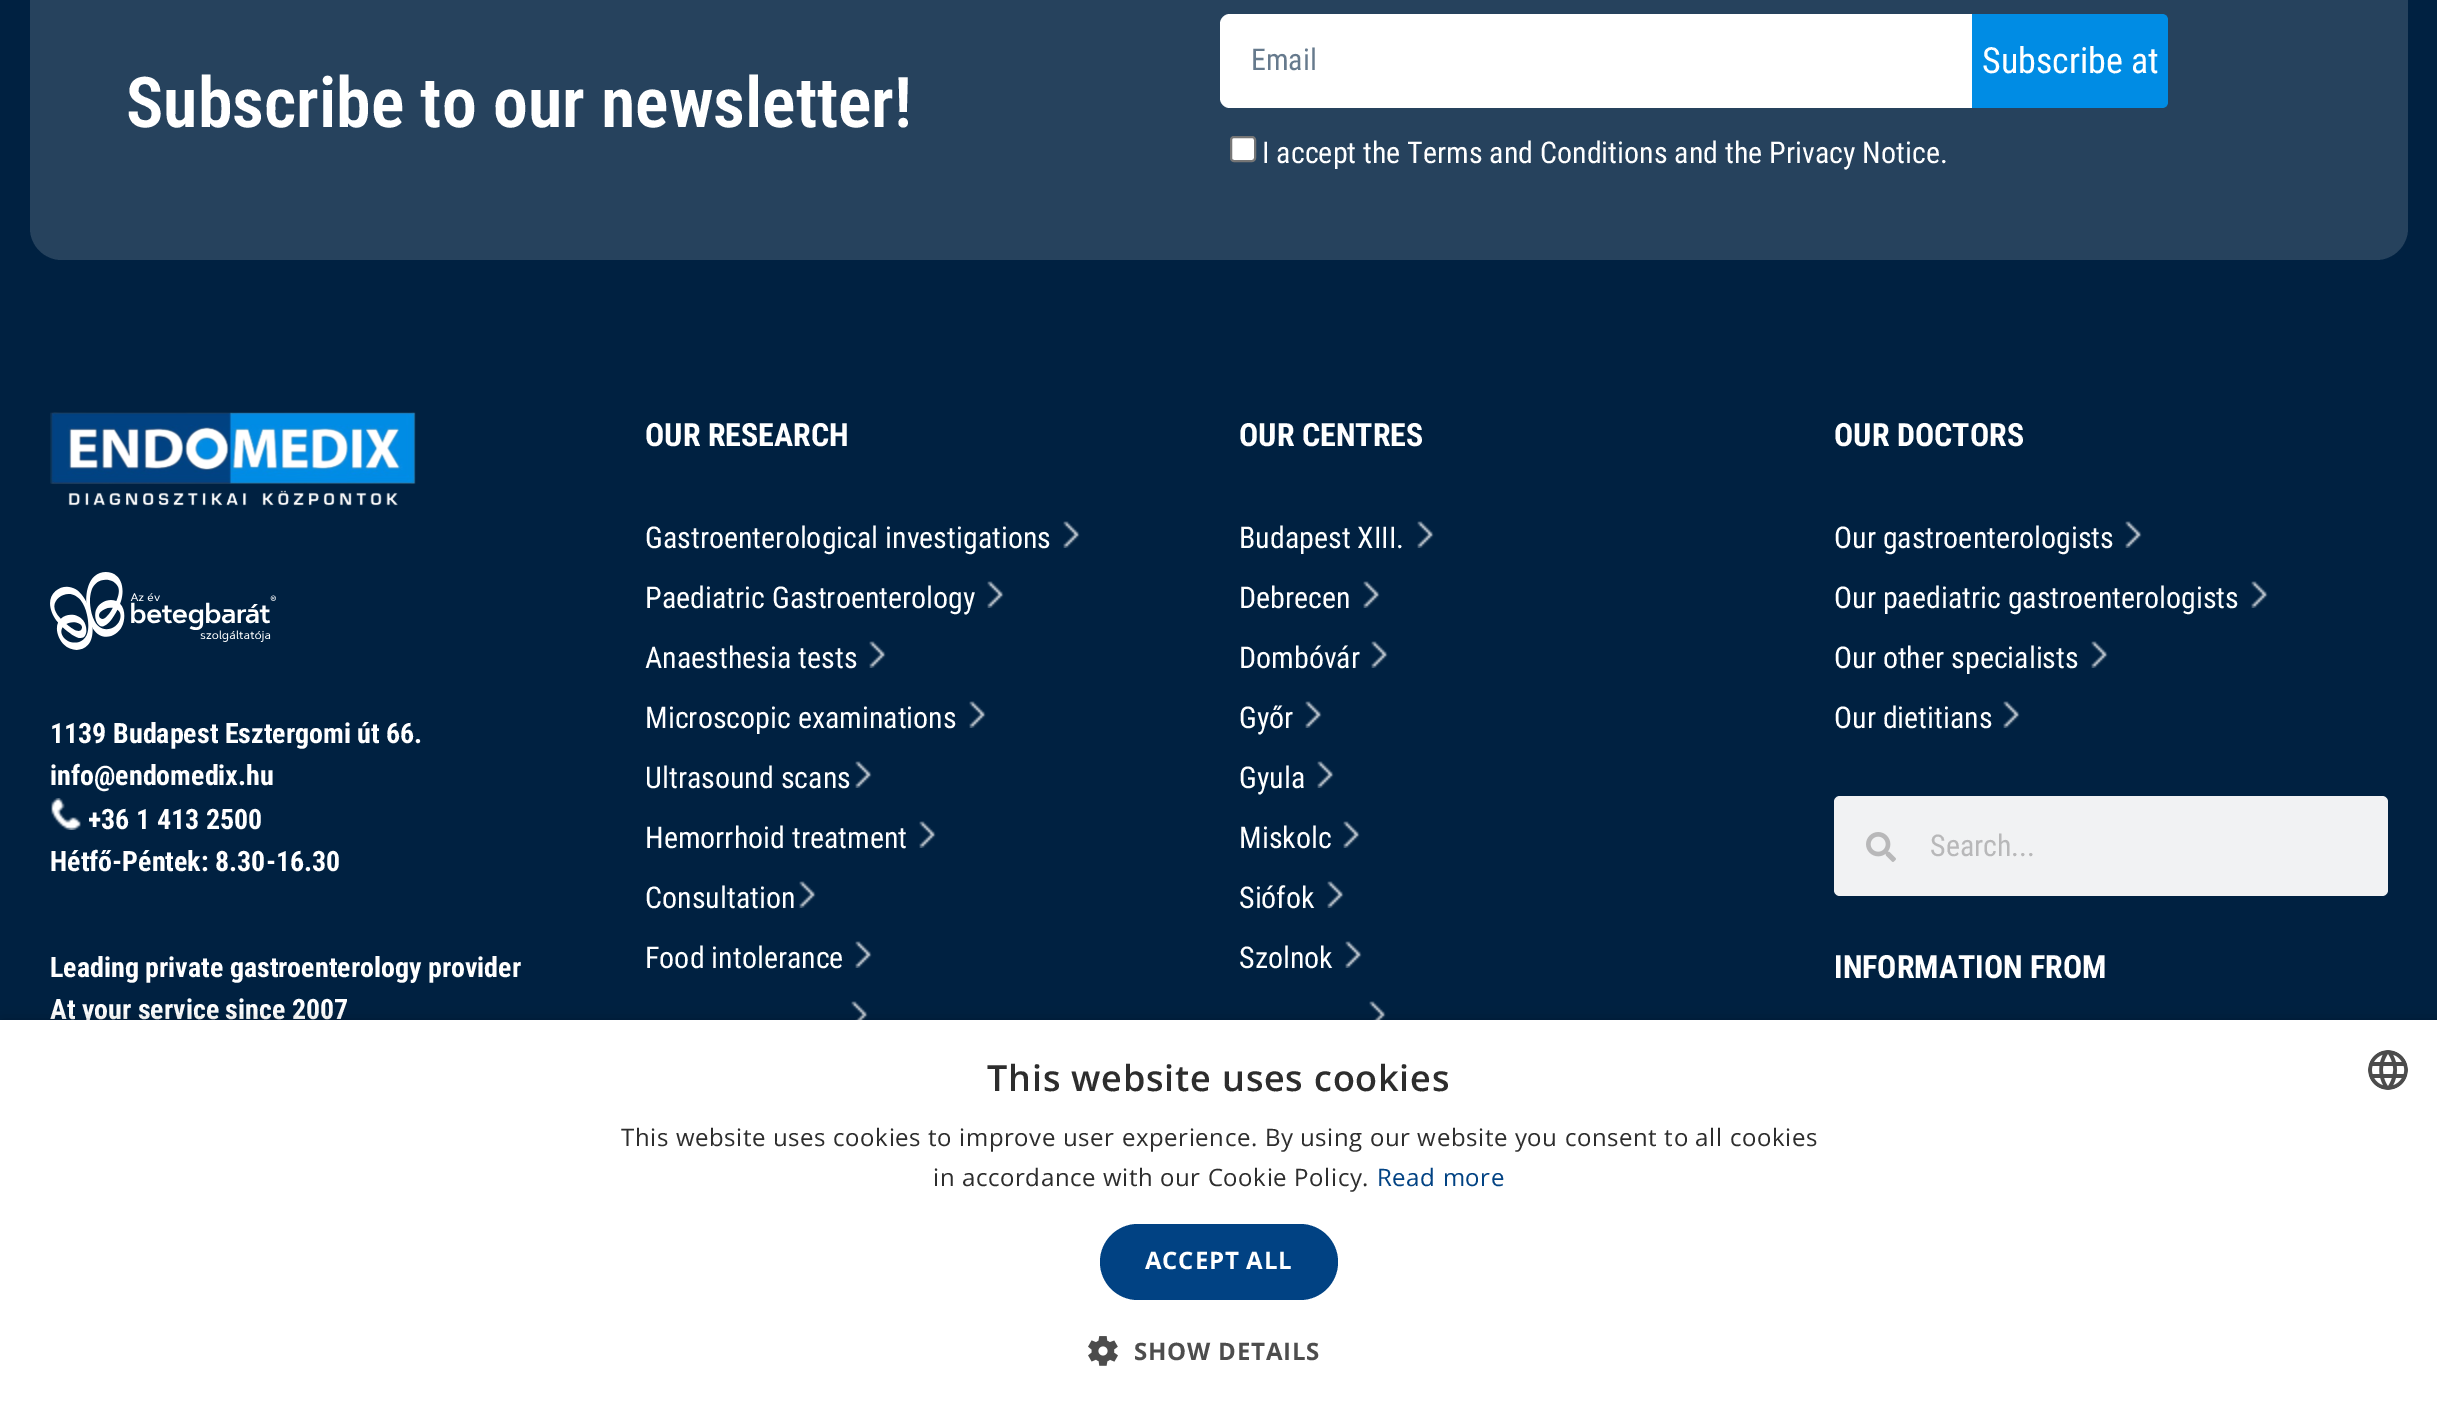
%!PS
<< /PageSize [2437 1418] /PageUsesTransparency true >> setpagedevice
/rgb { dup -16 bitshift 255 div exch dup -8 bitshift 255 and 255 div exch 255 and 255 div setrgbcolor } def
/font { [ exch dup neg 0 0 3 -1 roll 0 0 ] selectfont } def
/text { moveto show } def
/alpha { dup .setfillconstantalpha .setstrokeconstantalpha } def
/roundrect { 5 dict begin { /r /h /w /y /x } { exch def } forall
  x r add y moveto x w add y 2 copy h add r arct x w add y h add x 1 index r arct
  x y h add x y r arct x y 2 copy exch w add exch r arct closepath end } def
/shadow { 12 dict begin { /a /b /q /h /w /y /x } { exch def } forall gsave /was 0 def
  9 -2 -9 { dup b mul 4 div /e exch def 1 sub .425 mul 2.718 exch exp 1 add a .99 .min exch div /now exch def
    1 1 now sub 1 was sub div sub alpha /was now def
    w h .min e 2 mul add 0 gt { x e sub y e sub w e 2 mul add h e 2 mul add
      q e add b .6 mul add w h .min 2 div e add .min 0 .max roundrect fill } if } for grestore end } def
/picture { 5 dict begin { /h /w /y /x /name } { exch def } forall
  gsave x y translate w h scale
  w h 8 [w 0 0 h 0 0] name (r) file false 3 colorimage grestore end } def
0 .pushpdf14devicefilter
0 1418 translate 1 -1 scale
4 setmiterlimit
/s1 { /RobotoCondensed-SemiBold 70 font 16#FFFFFF rgb } def
/s2 { /RobotoCondensed-Regular 30 font 16#667A8D rgb } def
/s3 { /RobotoCondensed-Regular 36 font 16#FFFFFF rgb } def
/s4 { /RobotoCondensed-Regular 30 font 16#FFFFFF rgb } def
/s5 { /RobotoCondensed-Bold 28 font 16#FFFFFF rgb } def
/s6 { /RobotoCondensed-Bold 32 font 16#FFFFFF rgb } def
/s7 { /RobotoCondensed-Regular 30 font 16#B8B8B9 rgb } def
16#002141 rgb
0 0 2437 1418 rectfill
16#26425D rgb
30 -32 2378 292 32 roundrect fill
s1
(Subscribe to our newsletter!) 126 127 text
1230 14 moveto 1972 14 lineto 1972 108 lineto 1230 108 lineto 1224.5 108 1220 103.5 1220 98 curveto 1220 24 lineto 1220 18.5 1224.5 14 1230 14 curveto closepath fill
s2
(Email) 1251 70 text
16#008CE4 rgb
1972 14 moveto 2162 14 lineto 2165.5 14 2168 16.5 2168 20 curveto 2168 102 lineto 2168 105.5 2165.5 108 2162 108 curveto 1972 108 lineto closepath fill
s3
(Subscribe at) 1982 73 text
1231 137 24 24 3 roundrect gsave fill grestore
16#767676 rgb
2 setlinewidth
stroke
s4
(I accept the Terms and Conditions and the Privacy Notice.) 1262 163 text
(pic1.raw) 50 412 366 94 picture
(pic2.raw) 50 572 226 78 picture
s5
(1139 Budapest Esztergomi út 66.) 50 743 text
(info@endomedix.hu) 50 785 text
(pic3.raw) 51 798 30 32 picture
(+36 1 413 2500) 88 829 text
(Hétfő-Péntek: 8.30-16.30) 50 871 text
(Leading private gastroenterology provider) 50 977 text
(At your service since 2007) 50 1019 text
s6
(OUR RESEARCH) 645 446 text
s4
(Gastroenterological investigations) 645 548 text
(pic4.raw) 1063 521 17 27 picture
(Paediatric Gastroenterology) 645 608 text
(pic4.raw) 987 581 17 27 picture
(Anaesthesia tests) 645 668 text
(pic4.raw) 869 641 17 27 picture
(Microscopic examinations) 645 728 text
(pic4.raw) 969 701 17 27 picture
(Ultrasound scans) 645 788 text
(pic4.raw) 855 761 17 27 picture
(Hemorrhoid treatment) 645 848 text
(pic4.raw) 919 821 17 27 picture
(Consultation) 645 908 text
(pic4.raw) 799 881 17 27 picture
(Food intolerance) 645 968 text
(pic4.raw) 855 941 17 27 picture
(pic5.raw) 851 1001 17 19 picture
s6
(OUR CENTRES) 1239 446 text
s4
(Budapest XIII.) 1239 548 text
(pic4.raw) 1417 521 17 27 picture
(Debrecen) 1239 608 text
(pic4.raw) 1363 581 17 27 picture
(Dombóvár) 1239 668 text
(pic4.raw) 1371 641 17 27 picture
(Győr) 1239 728 text
(pic4.raw) 1305 701 17 27 picture
(Gyula) 1239 788 text
(pic4.raw) 1317 761 17 27 picture
(Miskolc) 1239 848 text
(pic4.raw) 1343 821 17 27 picture
(Siófok) 1239 908 text
(pic4.raw) 1327 881 17 27 picture
(Szolnok) 1239 968 text
(pic4.raw) 1345 941 17 27 picture
(pic5.raw) 1369 1001 17 19 picture
s6
(OUR DOCTORS) 1834 446 text
s4
(Our gastroenterologists) 1834 548 text
(pic4.raw) 2125 521 17 27 picture
(Our paediatric gastroenterologists) 1834 608 text
(pic4.raw) 2251 581 17 27 picture
(Our other specialists) 1834 668 text
(pic4.raw) 2091 641 17 27 picture
(Our dietitians) 1834 728 text
(pic4.raw) 2003 701 17 27 picture
16#F1F2F3 rgb
1834 796 554 100 6 roundrect fill
(pic6.raw) 1866 832 30 30 picture
s7
(Search...) 1930 856 text
s6
(INFORMATION FROM) 1834 978 text
16#000000 rgb
2 1024 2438 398 0 8 0.35 shadow
16#FFFFFF rgb
0 1020 2437 398 rectfill
/OpenSans-SemiBold 36 font
16#2D2D2D rgb
987 1091 moveto 0.8 0 (This website uses cookies) ashow
(pic7.raw) 2368 1050 40 40 picture
/OpenSans-Regular 24 font
621 1146 moveto 0.6 0 (This website uses cookies to improve user experience. By using our website you consent to all cookies) ashow
933 1186 moveto 0.6 0 (in accordance with our Cookie Policy.) ashow
16#014283 rgb
1377 1186 moveto 0.6 0 (Read more) ashow
1100 1224 238 76 38 roundrect fill
/OpenSans-Bold 24 font
16#FFFFFF rgb
1145 1269 moveto 0.8 0 (ACCEPT ALL) ashow
(pic8.raw) 1088 1336 30 30 picture
16#4D4D4D rgb
1134 1360 moveto 0.8 0 (SHOW DETAILS) ashow
.poppdf14devicefilter showpage
